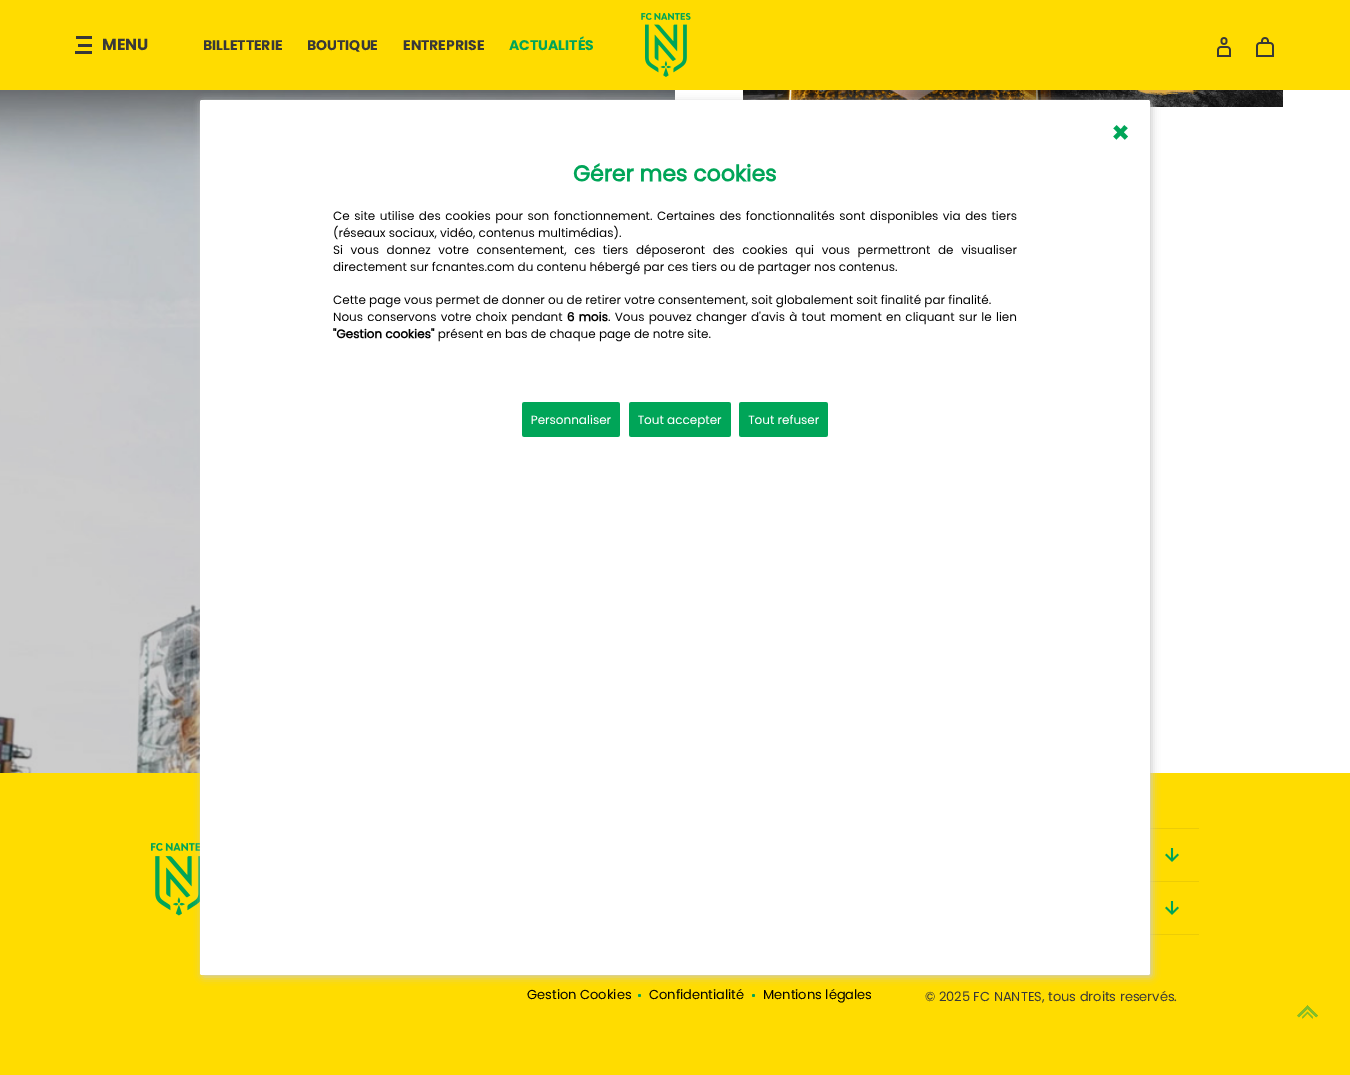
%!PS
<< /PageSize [1350 1075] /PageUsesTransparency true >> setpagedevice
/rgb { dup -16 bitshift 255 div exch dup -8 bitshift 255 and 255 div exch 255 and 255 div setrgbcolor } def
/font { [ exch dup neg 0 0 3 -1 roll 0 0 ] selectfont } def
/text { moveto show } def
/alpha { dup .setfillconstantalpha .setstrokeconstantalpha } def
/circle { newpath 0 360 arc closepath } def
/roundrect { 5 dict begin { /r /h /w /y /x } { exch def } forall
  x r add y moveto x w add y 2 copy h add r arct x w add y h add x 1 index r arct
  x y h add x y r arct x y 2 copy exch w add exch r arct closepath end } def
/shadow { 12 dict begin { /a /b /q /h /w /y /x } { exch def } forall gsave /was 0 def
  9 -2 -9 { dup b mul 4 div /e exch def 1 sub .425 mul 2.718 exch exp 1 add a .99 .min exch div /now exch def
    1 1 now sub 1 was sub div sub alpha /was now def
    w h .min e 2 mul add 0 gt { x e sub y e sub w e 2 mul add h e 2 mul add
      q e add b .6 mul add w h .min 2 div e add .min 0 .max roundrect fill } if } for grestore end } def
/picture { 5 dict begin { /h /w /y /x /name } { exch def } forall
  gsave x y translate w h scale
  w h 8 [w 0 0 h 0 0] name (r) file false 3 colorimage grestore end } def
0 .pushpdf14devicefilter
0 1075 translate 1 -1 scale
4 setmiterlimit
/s1 { /Poppins-Bold 16 font 16#383838 rgb } def
/s2 { /Poppins-Bold 14 font 16#383838 rgb } def
/s3 { /Poppins-Bold 14 font 16#00A558 rgb } def
/s4 { /Poppins-Bold 30 font 16#00A558 rgb } def
/s5 { /Poppins-Regular 13 font 16#000000 rgb } def
/s6 { /Poppins-Regular 13 font 16#383838 rgb } def
16#FFFFFF rgb
0 0 1350 1075 rectfill
16#FFDC00 rgb
0 0 1350 90 rectfill
(pic1.raw) 75 36 17 18 picture
s1
(MENU) 102 50 text
s2
(BILLETTERIE) 203 50 text
(BOUTIQUE) 307 50 text
(ENTREPRISE) 403 50 text
s3
(ACTUALITÉS) 509 50 text
(pic2.raw) 641 13 50 64 picture
(pic3.raw) 1217 37 14 20 picture
(pic4.raw) 1256 37 18 20 picture
(pic5.raw) 0 90 675 683 picture
(pic6.raw) 743 90 540 17 picture
16#FFDC00 rgb
0 773 1350 302 rectfill
(pic8.raw) 151 843 49 73 picture
16#ECCC06 rgb
1150 828 49 1 rectfill
1150 881 49 1 rectfill
1150 934 49 1 rectfill
16#CCCCCC rgb
202 102 950 875 2 4 1 shadow
16#FFFFFF rgb
200 100 950 875 2 roundrect fill
s4
(×) 1111 143 text
(pic7.raw) 333 163 684 274 picture
(pic9.raw) 1165 848 14 14 picture
(pic9.raw) 1165 901 14 14 picture
s5
(Gestion Cookies) 527 999 text
16#00A558 rgb
639.5 995.5 1.5 circle fill
s5
(Confidentialité) 649 999 text
16#00A558 rgb
753.5 995.5 1.5 circle fill
s5
(Mentions légales) 763 999 text
s6
(© 2025 FC NANTES, tous droits reservés.) 925 1001 text
(pic10.raw) 1297 1005 21 14 picture
.poppdf14devicefilter showpage
